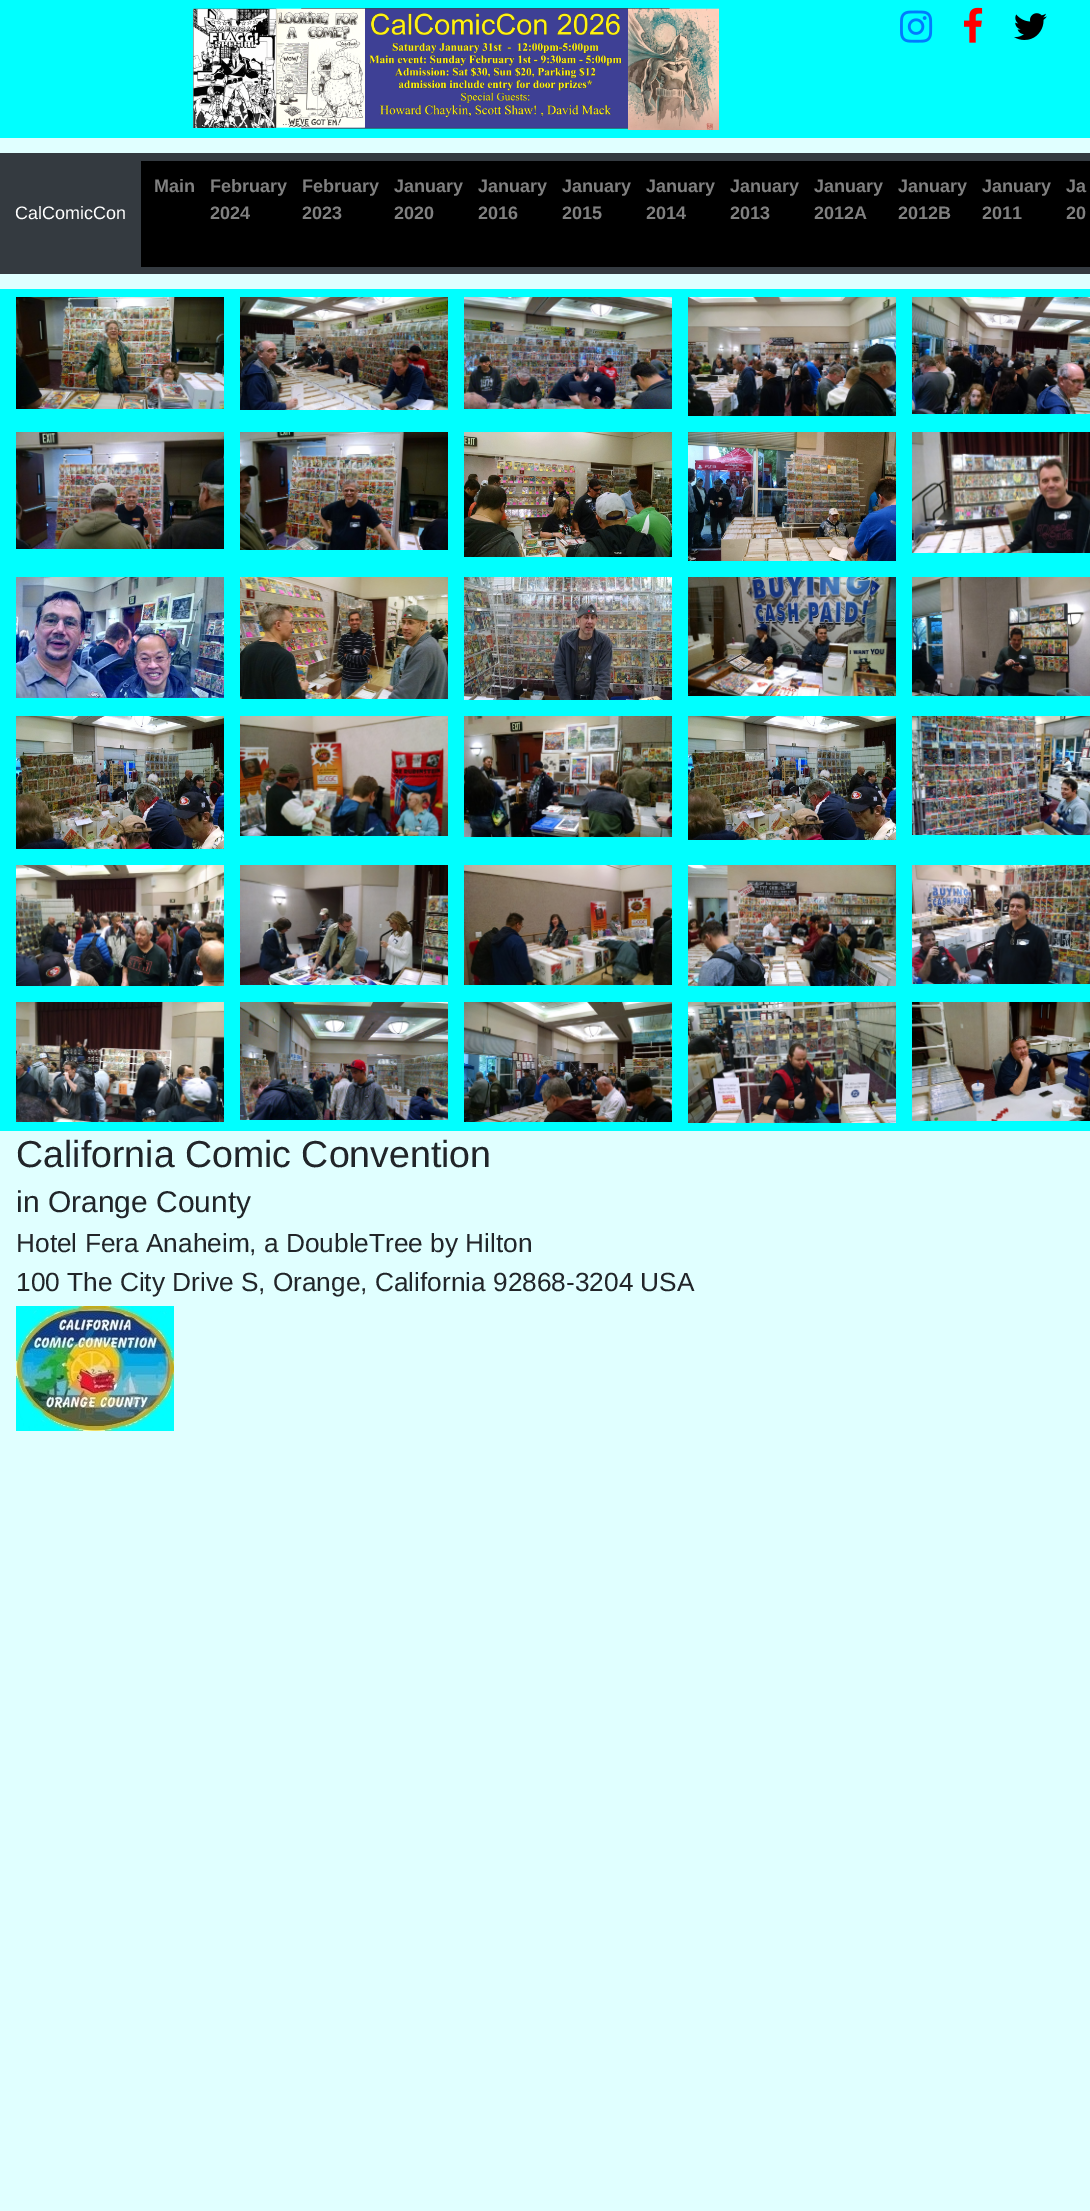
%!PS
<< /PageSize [1090 2211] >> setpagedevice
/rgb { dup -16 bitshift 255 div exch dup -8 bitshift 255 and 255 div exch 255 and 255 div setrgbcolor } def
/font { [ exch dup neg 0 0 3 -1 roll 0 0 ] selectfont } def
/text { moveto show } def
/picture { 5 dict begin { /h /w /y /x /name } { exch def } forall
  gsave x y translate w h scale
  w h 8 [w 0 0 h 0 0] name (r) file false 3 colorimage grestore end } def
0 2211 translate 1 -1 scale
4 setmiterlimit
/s1 { /LiberationSans-Regular 18 font 16#FFFFFF rgb } def
/s2 { /LiberationSans-Bold 18 font 16#808080 rgb } def
/s3 { /LiberationSans-Regular 37.5 font 16#212529 rgb } def
/s4 { /LiberationSans-Regular 30 font 16#212529 rgb } def
/s5 { /LiberationSans-Regular 26.25 font 16#212529 rgb } def
16#E0FFFF rgb
0 0 1090 2211 rectfill
16#00FFFF rgb
0 0 1090 138 rectfill
(pic1.raw) 193 8 526 122 picture
(pic2.raw) 900 10 33 33 picture
(pic3.raw) 964 7 19 36 picture
(pic4.raw) 1014 13 33 27 picture
16#343A40 rgb
0 153 1090 121 rectfill
s1
(CalComicCon) 15 219 text
16#000000 rgb
141 161 949 106 rectfill
s2
(Main) 154 192 text
(February) 210 192 text
(2024) 210 219 text
(February) 302 192 text
(2023) 302 219 text
(January) 394 192 text
(2020) 394 219 text
(January) 478 192 text
(2016) 478 219 text
(January) 562 192 text
(2015) 562 219 text
(January) 646 192 text
(2014) 646 219 text
(January) 730 192 text
(2013) 730 219 text
(January) 814 192 text
(2012A) 814 219 text
(January) 898 192 text
(2012B) 898 219 text
(January) 982 192 text
(2011) 982 219 text
(Ja) 1066 192 text
(20) 1066 219 text
16#00FFFF rgb
0 289 1090 842 rectfill
(pic5.raw) 16 297 208 112 picture
(pic6.raw) 240 297 208 113 picture
(pic7.raw) 464 297 208 112 picture
(pic8.raw) 688 297 208 119 picture
(pic9.raw) 912 297 178 117 picture
(pic10.raw) 16 432 208 117 picture
(pic11.raw) 240 432 208 118 picture
(pic12.raw) 464 432 208 125 picture
(pic13.raw) 688 432 208 129 picture
(pic14.raw) 912 432 178 121 picture
(pic15.raw) 16 577 208 121 picture
(pic16.raw) 240 577 208 122 picture
(pic17.raw) 464 577 208 123 picture
(pic18.raw) 688 577 208 119 picture
(pic19.raw) 912 577 178 119 picture
(pic20.raw) 16 716 208 133 picture
(pic21.raw) 240 716 208 120 picture
(pic22.raw) 464 716 208 121 picture
(pic23.raw) 688 716 208 124 picture
(pic24.raw) 912 716 178 119 picture
(pic25.raw) 16 865 208 121 picture
(pic26.raw) 240 865 208 120 picture
(pic27.raw) 464 865 208 120 picture
(pic28.raw) 688 865 208 121 picture
(pic29.raw) 912 865 178 119 picture
(pic30.raw) 16 1002 208 120 picture
(pic31.raw) 240 1002 208 118 picture
(pic32.raw) 464 1002 208 120 picture
(pic33.raw) 688 1002 208 121 picture
(pic34.raw) 912 1002 178 119 picture
s3
(California Comic Convention) 16 1167 text
s4
(in Orange County) 16 1212 text
s5
(Hotel Fera Anaheim, a DoubleTree by Hilton) 16 1252 text
(100 The City Drive S, Orange, California 92868-3204 USA) 16 1291 text
(pic35.raw) 16 1306 158 125 picture
showpage
